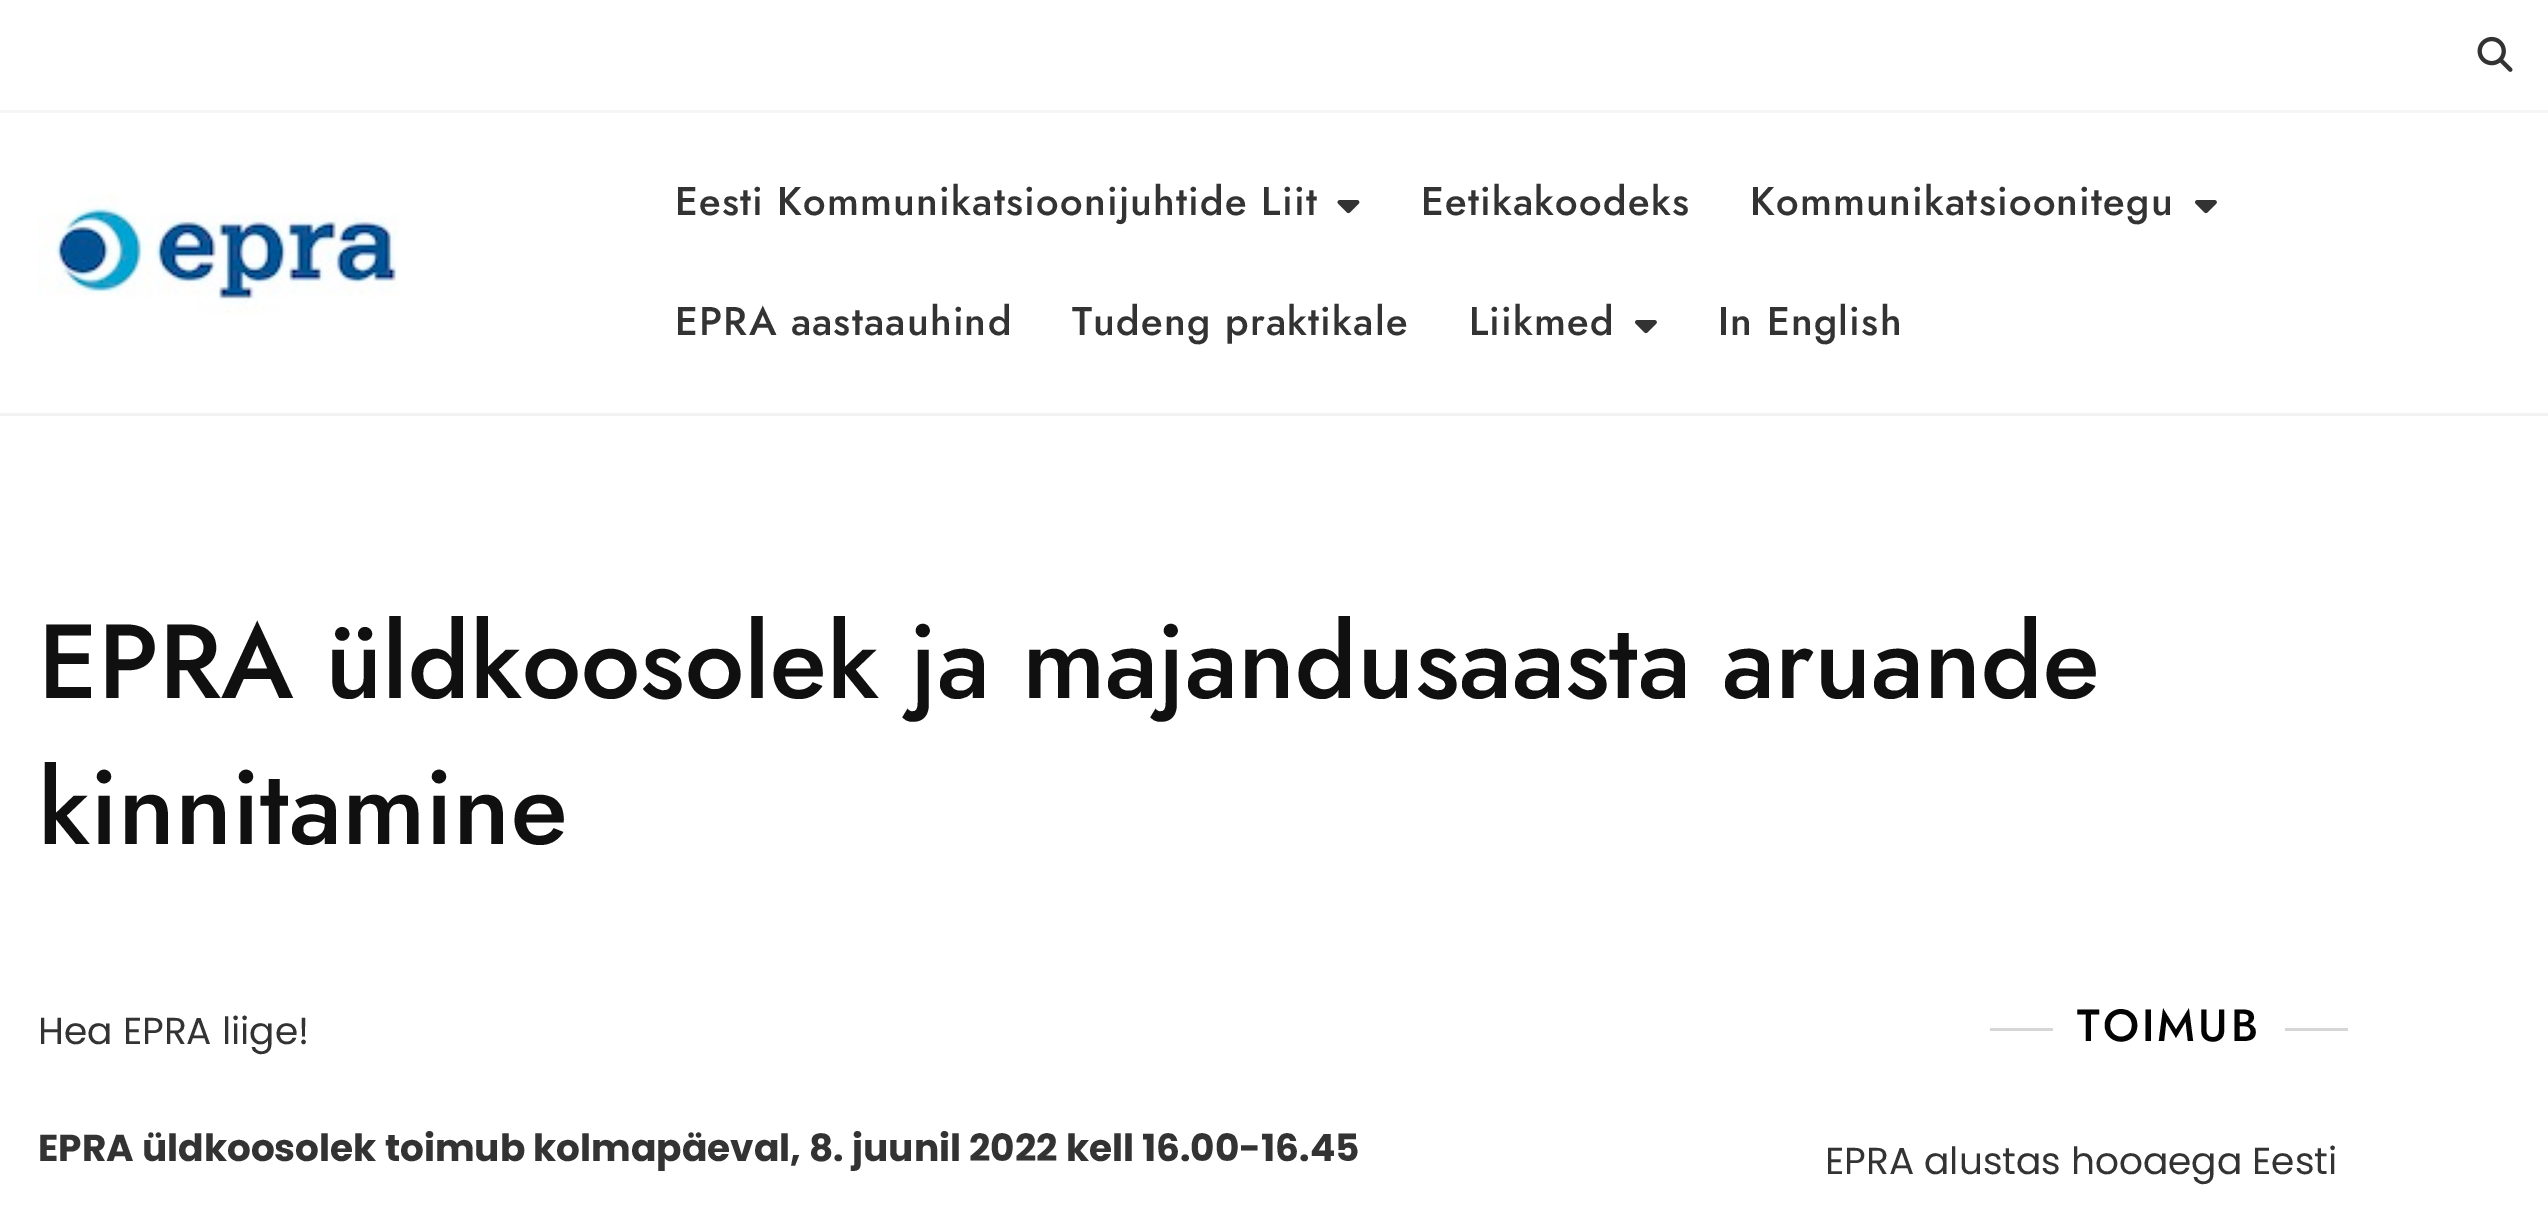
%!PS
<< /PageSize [2548 1215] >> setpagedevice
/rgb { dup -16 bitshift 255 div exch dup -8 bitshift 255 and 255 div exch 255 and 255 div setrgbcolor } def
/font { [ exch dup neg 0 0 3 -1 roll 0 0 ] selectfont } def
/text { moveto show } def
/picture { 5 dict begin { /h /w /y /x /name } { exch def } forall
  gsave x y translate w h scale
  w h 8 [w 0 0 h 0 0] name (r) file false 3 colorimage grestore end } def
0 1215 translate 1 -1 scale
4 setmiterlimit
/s1 { /Jost-Medium 105 font 16#101010 rgb } def
/s2 { /Poppins-Regular 37.5 font 16#333333 rgb } def
/s3 { /Poppins-Bold 37.5 font 16#333333 rgb } def
16#FFFFFF rgb
0 0 2548 1215 rectfill
16#F5F5F5 rgb
0 110 2548 3 rectfill
(pic1.raw) 2477 36 36 36 picture
(pic2.raw) 38 194 361 121 picture
/Jost-Medium 40 font
16#333333 rgb
675 215 moveto 1.25 0 (Eesti Kommunikatsioonijuhtide Liit) ashow
(pic3.raw) 1337 200 23 14 picture
1421 215 moveto 1.25 0 (Eetikakoodeks) ashow
1750 215 moveto 1.25 0 (Kommunikatsioonitegu) ashow
(pic4.raw) 2195 200 22 14 picture
675 335 moveto 1.25 0 (EPRA aastaauhind) ashow
1072 335 moveto 1.25 0 (Tudeng praktikale) ashow
1469 335 moveto 1.25 0 (Liikmed) ashow
(pic4.raw) 1635 320 22 14 picture
1718 335 moveto 1.25 0 (In English) ashow
16#F2F2F2 rgb
0 413 2548 3 rectfill
s1
(EPRA üldkoosolek ja majandusaasta aruande) 38 698 text
(kinnitamine) 38 844 text
s2
(Hea EPRA liige!) 38 1044 text
s3
(EPRA üldkoosolek toimub kolmapäeval, 8. juunil 2022 kell 16.00-16.45) 38 1161 text
16#D6D6D6 rgb
1990 1028 63 3 rectfill
/Jost-Medium 45 font
16#030303 rgb
2077 1041 moveto 3 0 (TOIMUB) ashow
16#D6D6D6 rgb
2285 1028 63 3 rectfill
s2
(EPRA alustas hooaega Eesti) 1825 1174 text
showpage
